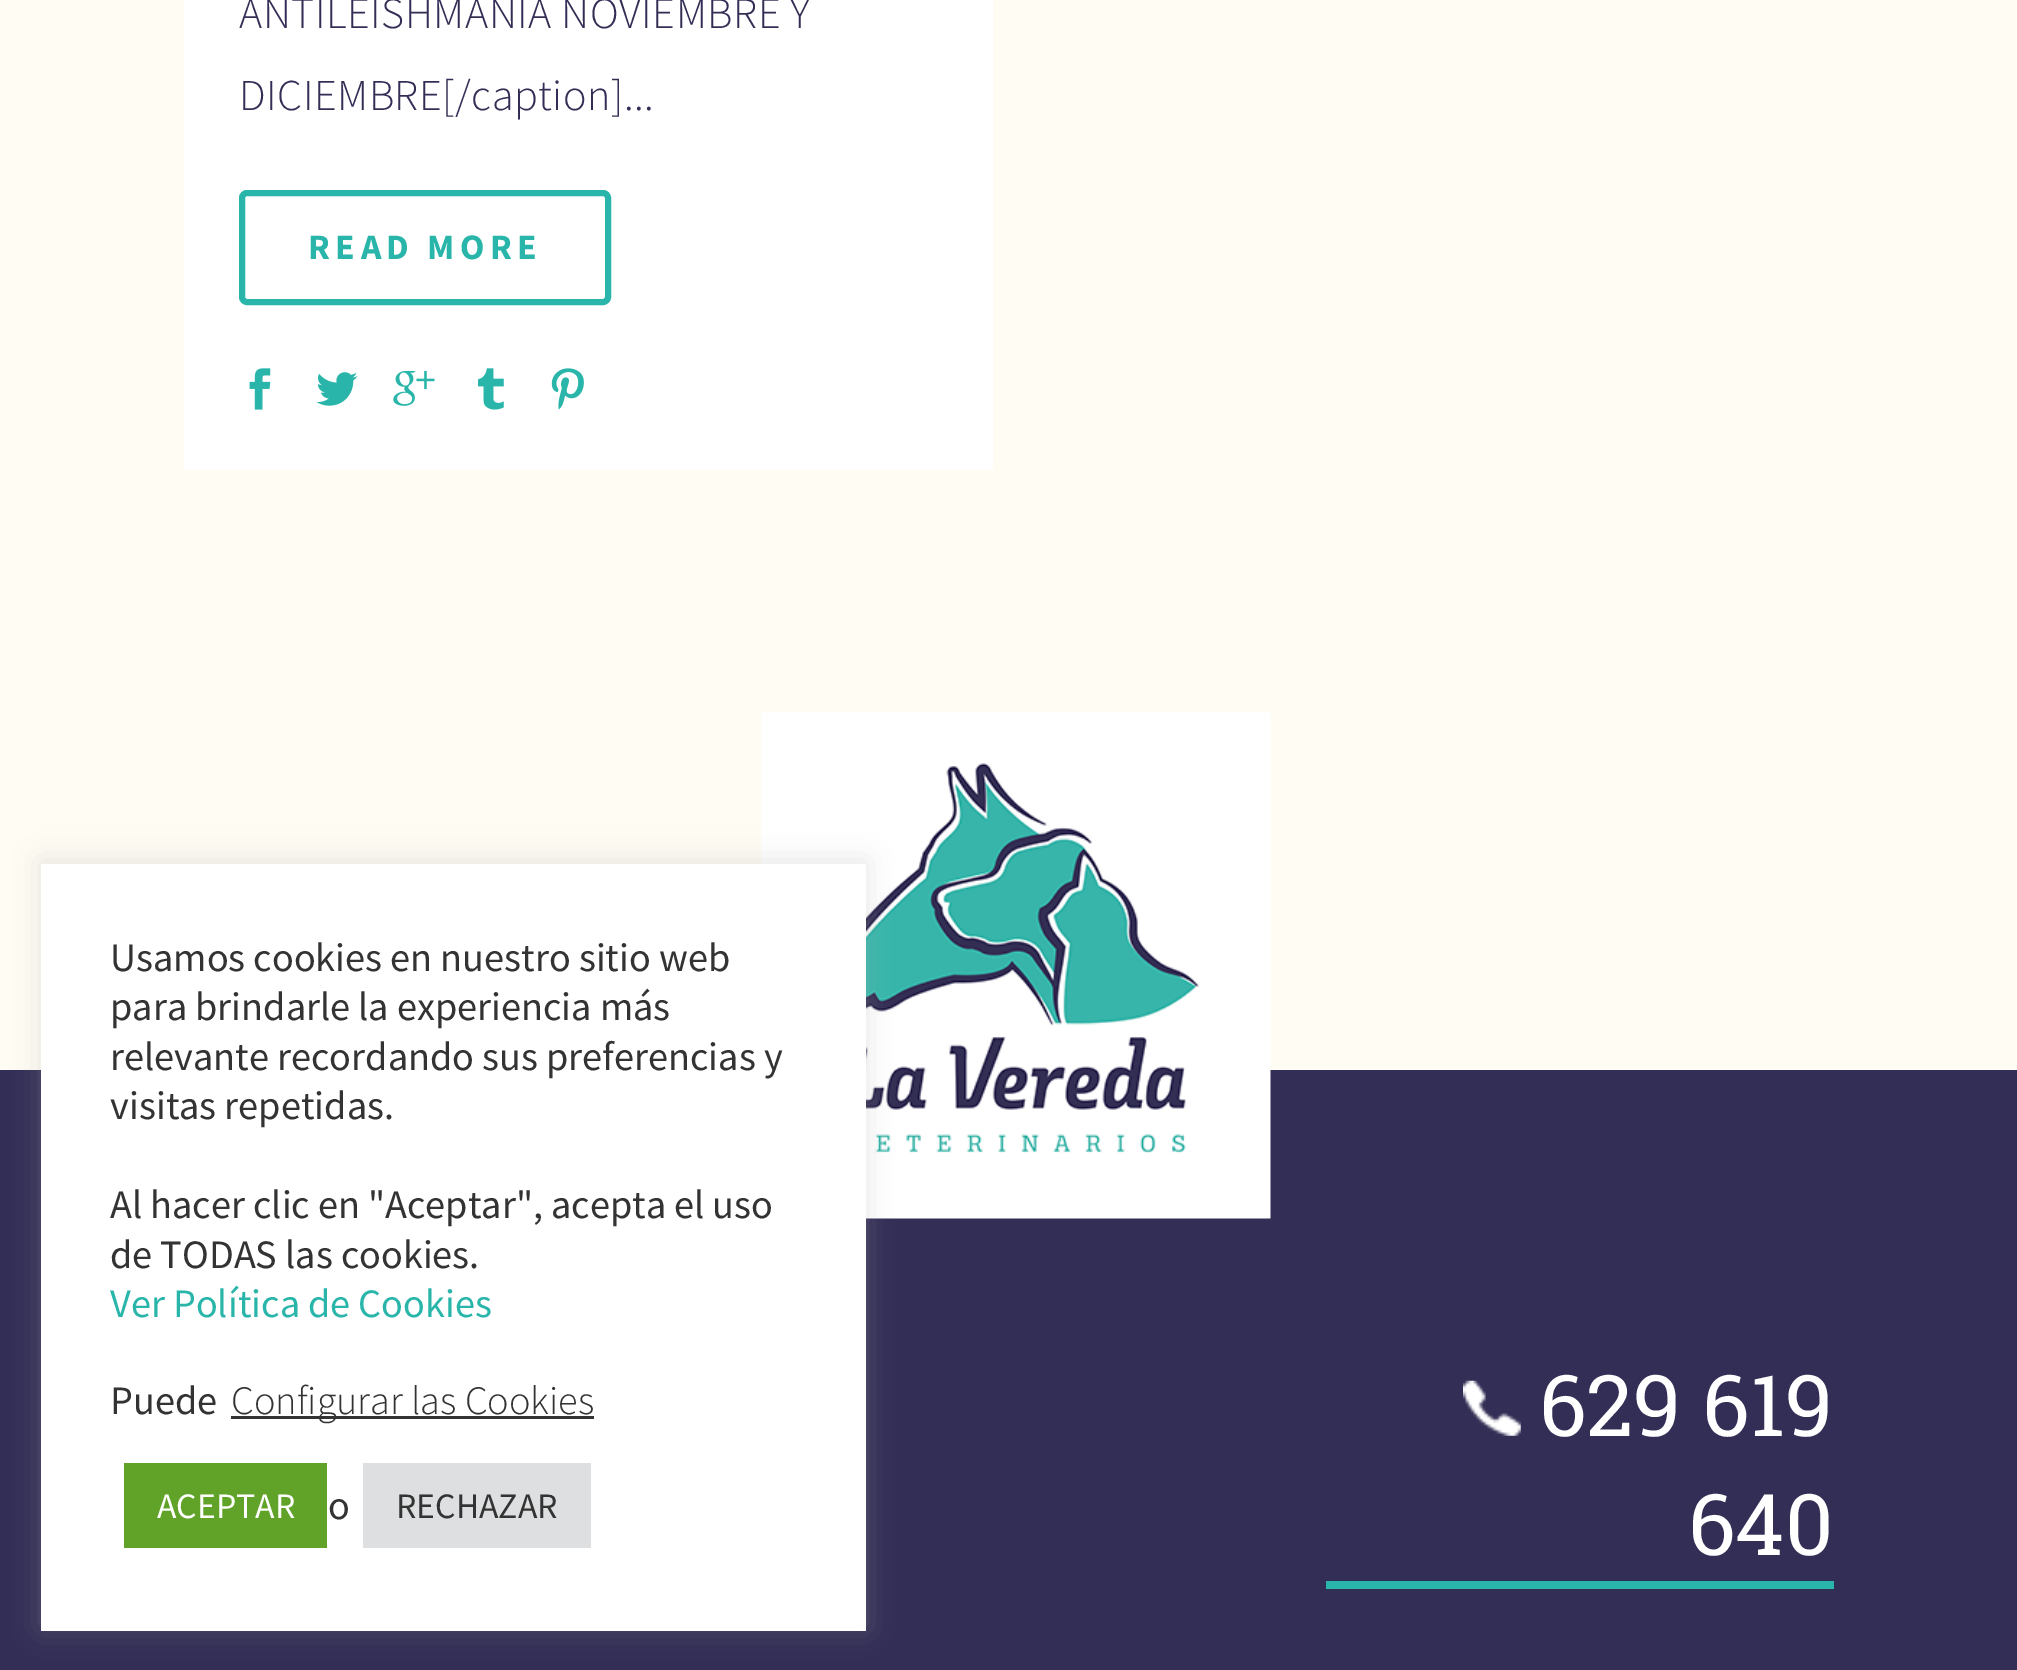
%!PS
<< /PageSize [2017 1670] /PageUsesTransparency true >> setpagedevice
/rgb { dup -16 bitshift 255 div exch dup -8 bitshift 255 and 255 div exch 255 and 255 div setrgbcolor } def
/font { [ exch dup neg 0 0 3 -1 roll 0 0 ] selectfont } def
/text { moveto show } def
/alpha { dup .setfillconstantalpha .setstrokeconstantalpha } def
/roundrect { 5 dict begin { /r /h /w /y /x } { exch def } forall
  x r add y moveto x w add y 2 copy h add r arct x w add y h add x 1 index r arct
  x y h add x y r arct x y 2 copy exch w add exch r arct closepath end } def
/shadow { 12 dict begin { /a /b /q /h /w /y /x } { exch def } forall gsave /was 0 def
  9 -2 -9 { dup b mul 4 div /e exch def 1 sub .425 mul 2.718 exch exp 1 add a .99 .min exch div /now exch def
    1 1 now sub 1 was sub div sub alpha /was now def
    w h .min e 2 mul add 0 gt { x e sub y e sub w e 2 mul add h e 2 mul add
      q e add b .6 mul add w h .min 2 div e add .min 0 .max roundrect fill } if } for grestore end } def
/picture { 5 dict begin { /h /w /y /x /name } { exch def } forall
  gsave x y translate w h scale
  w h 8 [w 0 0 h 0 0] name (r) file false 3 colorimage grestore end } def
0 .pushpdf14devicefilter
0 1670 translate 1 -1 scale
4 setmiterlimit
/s1 { /RobotoSlab-Regular 85 font 16#FFFFFF rgb } def
/s2 { /SourceSansPro-Regular 40.3 font 16#333333 rgb } def
/s3 { /SourceSansPro-Regular 40.3 font 16#29B5A9 rgb } def
/s4 { /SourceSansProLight-Light 40.3 font 16#333333 rgb } def
/s5 { /SourceSansPro-Regular 35.75 font 16#FFFFFF rgb } def
/s6 { /SourceSansPro-Regular 35.75 font 16#333333 rgb } def
16#FFFCF4 rgb
0 0 2017 1670 rectfill
16#FFFFFF rgb
184 0 809 470 rectfill
/SourceSansProLight-Light 44 font
16#322E55 rgb
239 28 moveto 0.55 0 (ANTILEISHMANIA NOVIEMBRE Y) ashow
239 110 moveto 0.55 0 (DICIEMBRE[/caption]...) ashow
16#29B5A9 rgb
6 setlinewidth
242 193 366 109 5 roundrect stroke
/SourceSansPro-Bold 35.75 font
308 259 moveto 5.5 0 (READ MORE) ashow
(pic1.raw) 249 368 22 42 picture
(pic2.raw) 316 372 42 34 picture
(pic3.raw) 393 371 42 35 picture
(pic4.raw) 478 368 26 42 picture
(pic5.raw) 551 368 33 42 picture
16#322E55 rgb
0 1070 2017 600 rectfill
(pic6.raw) 761 712 510 507 picture
16#29B5A9 rgb
1326 1581 508 8 rectfill
(pic7.raw) 1463 1380 58 56 picture
s1
(629 619) 1539 1436 text
(640) 1688 1555 text
16#ACABAB rgb
41 861 825 767 0 14 0.3 shadow
16#FFFFFF rgb
41 864 825 767 rectfill
s2
(Usamos cookies en nuestro sitio web) 110 971 text
(para brindarle la experiencia más) 110 1020 text
(relevante recordando sus preferencias y) 110 1070 text
(visitas repetidas.) 110 1119 text
(Al hacer clic en "Aceptar", acepta el uso) 110 1218 text
(de TODAS las cookies.) 110 1268 text
s3
(Ver Política de Cookies) 110 1317 text
s2
(Puede) 110 1414 text
231 1416 363 3 rectfill
s4
(Configurar las Cookies) 231 1414 text
16#61A229 rgb
124 1463 203 85 rectfill
s5
(ACEPTAR) 157 1518 text
s2
(o) 328 1519 text
16#DEDFE0 rgb
363 1463 228 85 rectfill
s6
(RECHAZAR) 396 1518 text
.poppdf14devicefilter showpage
